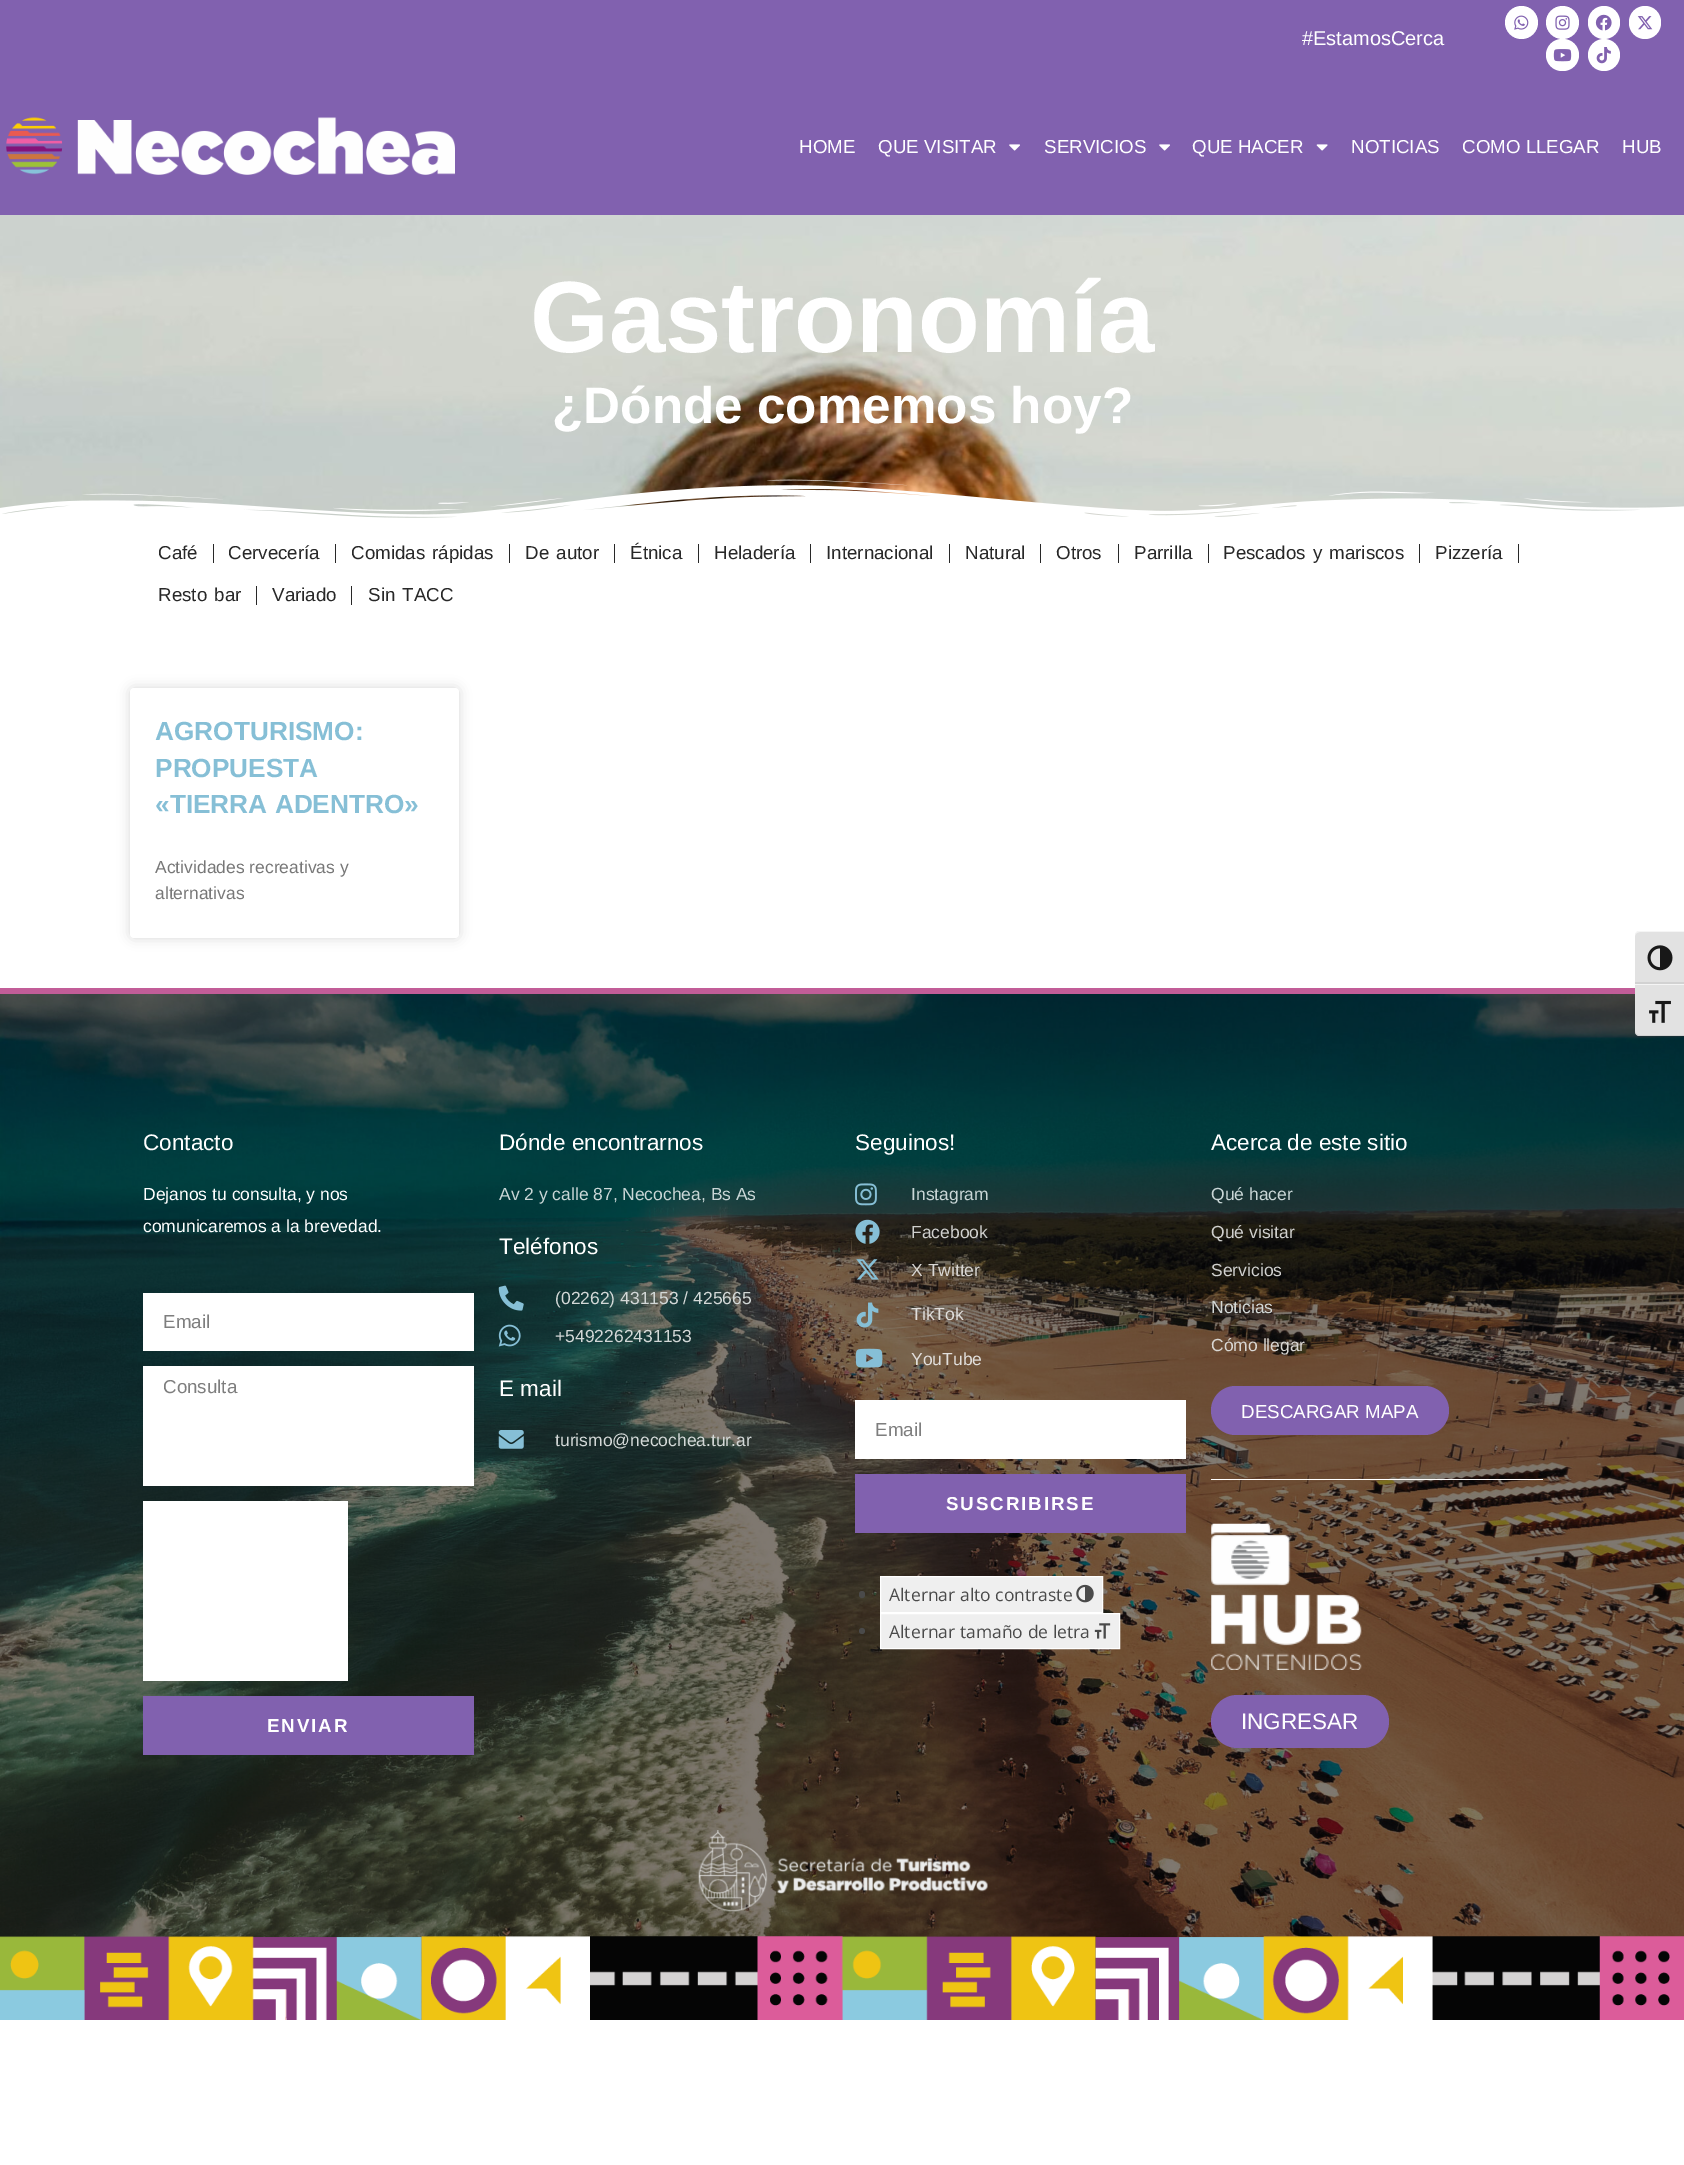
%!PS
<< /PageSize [1684 2165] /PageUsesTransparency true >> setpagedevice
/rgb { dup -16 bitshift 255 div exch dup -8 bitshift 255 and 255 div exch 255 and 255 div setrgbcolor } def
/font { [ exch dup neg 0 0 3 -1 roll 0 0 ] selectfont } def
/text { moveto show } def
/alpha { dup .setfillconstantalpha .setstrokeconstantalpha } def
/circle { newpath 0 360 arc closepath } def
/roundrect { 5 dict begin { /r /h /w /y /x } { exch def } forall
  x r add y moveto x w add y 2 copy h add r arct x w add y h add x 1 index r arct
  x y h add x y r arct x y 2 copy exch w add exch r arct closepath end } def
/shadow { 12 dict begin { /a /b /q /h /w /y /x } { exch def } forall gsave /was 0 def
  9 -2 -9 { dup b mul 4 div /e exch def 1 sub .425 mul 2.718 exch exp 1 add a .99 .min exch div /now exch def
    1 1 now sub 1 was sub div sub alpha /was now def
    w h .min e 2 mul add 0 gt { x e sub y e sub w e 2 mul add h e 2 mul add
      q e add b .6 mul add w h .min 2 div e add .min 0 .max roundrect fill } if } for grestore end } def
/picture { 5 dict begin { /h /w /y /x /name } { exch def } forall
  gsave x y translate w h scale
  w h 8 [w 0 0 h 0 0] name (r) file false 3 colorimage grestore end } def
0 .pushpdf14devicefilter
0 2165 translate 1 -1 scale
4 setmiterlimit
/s1 { /LiberationSans-Regular 20 font 16#FFFFFF rgb } def
/s2 { /LiberationSans-Regular 18.75 font 16#FFFFFF rgb } def
/s3 { /LiberationSans-Bold 101.25 font 16#FFFFFF rgb } def
/s4 { /LiberationSans-Bold 51.25 font 16#FFFFFF rgb } def
/s5 { /LiberationSans-Regular 18.75 font 16#282828 rgb } def
/s6 { /LiberationSans-Bold 26.25 font 16#86BFD6 rgb } def
/s7 { /LiberationSans-Regular 17.5 font 16#777777 rgb } def
/s8 { /LiberationSans-Regular 22.5 font 16#FFFFFF rgb } def
/s9 { /LiberationSans-Regular 17.5 font 16#FFFFFF rgb } def
/s10 { /LiberationSans-Regular 18.75 font 16#7E7E7E rgb } def
/s11 { /LiberationSans-Regular 17.5 font 16#C9D6D6 rgb } def
/s12 { /LiberationSans-Regular 17.5 font 16#D3D8D7 rgb } def
/s13 { /LiberationSans-Regular 17.5 font 16#D0D0CE rgb } def
/s14 { /LiberationSans-Regular 17.5 font 16#D9D7D4 rgb } def
/s15 { /LiberationSans-Regular 17.5 font 16#E1DEDB rgb } def
/s16 { /OpenSans-Regular 17.5 font 16#4A4A4A rgb } def
16#FFFFFF rgb
0 0 1684 2165 rectfill
16#8161AF rgb
0 0 1684 215 rectfill
s1
(#EstamosCerca) 1302 45 text
1521.5 22.5 16.5 circle fill
(pic1.raw) 1514 15 15 15 picture
1562.5 22.5 16.5 circle fill
(pic2.raw) 1555 15 15 15 picture
1588 6 32 33 16 roundrect fill
(pic3.raw) 1595 14 17 17 picture
1629 6 32 33 16 roundrect fill
(pic4.raw) 1637 16 16 14 picture
1546 39 33 32 16 roundrect fill
(pic5.raw) 1553 49 19 13 picture
1604 55 16 circle fill
(pic6.raw) 1596 47 15 17 picture
(pic7.raw) 6 117 449 58 picture
s2
(HOME) 799 153 text
(QUE VISITAR) 878 153 text
(pic8.raw) 1009 144 11 7 picture
(SERVICIOS) 1044 153 text
(pic8.raw) 1159 144 11 7 picture
(QUE HACER) 1192 153 text
(pic9.raw) 1316 144 12 7 picture
(NOTICIAS) 1351 153 text
(COMO LLEGAR) 1462 153 text
(HUB) 1622 153 text
(pic10.raw) 0 215 1684 303 picture
s3
(Gastronomía) 530 352 text
s4
(¿Dónde comemos hoy?) 552 423 text
(pic11.raw) 0 479 1684 44 picture
s5
(Café) 158 559 text
213 544 1 19 rectfill
(Cervecería) 228 559 text
335 544 1 19 rectfill
351 559 moveto 2 0 32 (Comidas rápidas) widthshow
509 544 1 19 rectfill
525 559 moveto 2 0 32 (De autor) widthshow
614 544 1 19 rectfill
(Étnica) 630 559 text
698 544 1 19 rectfill
(Heladería) 714 559 text
810 544 1 19 rectfill
(Internacional) 826 559 text
949 544 1 19 rectfill
(Natural) 965 559 text
1040 544 1 19 rectfill
(Otros) 1056 559 text
1118 544 1 19 rectfill
(Parrilla) 1134 559 text
1208 544 1 19 rectfill
1223 559 moveto 2 0 32 (Pescados y mariscos) widthshow
1419 544 1 19 rectfill
(Pizzería) 1435 559 text
1518 544 1 19 rectfill
158 601 moveto 2 0 32 (Resto bar) widthshow
256 586 1 19 rectfill
(Variado) 272 601 text
351 586 1 19 rectfill
368 601 moveto 2 0 32 (Sin TACC) widthshow
16#000000 rgb
130 688 329 250 4 6 0.15 shadow
16#FFFFFF rgb
130 688 329 250 4 roundrect fill
s6
(AGROTURISMO:) 155 740 text
(PROPUESTA) 155 777 text
(«TIERRA ADENTRO») 155 813 text
s7
(Actividades recreativas y) 155 873 text
(alternativas) 155 899 text
(pic12.raw) 0 994 1684 1026 picture
16#C25D98 rgb
0 988 1635 6 rectfill
s8
(Contacto) 143 1150 text
s9
(Dejanos tu consulta, y nos) 143 1200 text
(comunicaremos a la brevedad.) 143 1232 text
143 1293 331 58 rectfill
s10
(Email) 163 1328 text
16#FFFFFF rgb
143 1366 331 120 rectfill
s10
(Consulta) 163 1393 text
16#FFFFFF rgb
143 1501 205 180 rectfill
16#8161AF rgb
143 1696 331 59 rectfill
/LiberationSans-Bold 18.75 font
16#FFFFFF rgb
267 1732 moveto 1.9 0 (ENVIAR) ashow
s8
(Dónde encontrarnos) 499 1150 text
s11
(Av 2 y calle 87,) 499 1200 text
(Necochea, Bs As) 622 1200 text
s8
(Teléfonos) 499 1254 text
(pic13.raw) 498 1285 26 26 picture
s12
(\(02262\) 431153 / 425665) 555 1304 text
(pic14.raw) 498 1324 23 23 picture
(+5492262431153) 555 1342 text
s8
(E mail) 499 1396 text
(pic15.raw) 498 1430 26 19 picture
s12
(turismo@necochea.tur.ar) 555 1446 text
s8
(Seguinos!) 855 1150 text
(pic16.raw) 855 1183 22 23 picture
s11
(Instagram) 911 1200 text
(pic17.raw) 855 1219 25 25 picture
s13
(Facebook) 911 1238 text
(pic18.raw) 856 1259 23 21 picture
s14
(X Twitter) 911 1276 text
(pic19.raw) 856 1302 23 26 picture
s15
(TikTok) 911 1320 text
(pic20.raw) 855 1348 28 20 picture
(YouTube) 911 1365 text
16#FFFFFF rgb
855 1400 331 59 rectfill
s10
(Email) 875 1436 text
16#8161AF rgb
855 1474 331 59 rectfill
/LiberationSans-Bold 18.75 font
16#FFFFFF rgb
946 1510 moveto 1.9 0 (SUSCRIBIRSE) ashow
16#4A4A4A rgb
859 1591 6 7 3 roundrect fill
16#EFEFEF rgb
880.5 1576.5 moveto 1102.5 1576.5 lineto 1102.5 1612.5 lineto 880.5 1612.5 lineto closepath gsave fill grestore
16#FFFFFF rgb
stroke
s16
(Alternar alto contraste) 889 1601 text
(pic21.raw) 1076 1584 18 19 picture
862 1631 3 circle fill
16#EFEFEF rgb
880.5 1613.5 moveto 1119.5 1613.5 lineto 1119.5 1648.5 lineto 880.5 1648.5 lineto closepath gsave fill grestore
16#FFFFFF rgb
stroke
s16
(Alternar tamaño de letra) 889 1638 text
(pic22.raw) 1094 1623 17 16 picture
s8
(Acerca de este sitio) 1211 1150 text
s11
(Qué hacer) 1211 1200 text
s13
(Qué visitar) 1211 1238 text
(Servicios) 1211 1276 text
s12
(Noticias) 1211 1313 text
s14
(Cómo llegar) 1211 1351 text
16#8161AF rgb
1211 1386 238 49 24.5 roundrect fill
s2
(DESCARGAR MAPA) 1241 1418 text
1211 1479 332 1 rectfill
(pic23.raw) 1211 1523 151 147 picture
16#8161AF rgb
1211 1695 178 53 26.5 roundrect fill
s8
(INGRESAR) 1241 1729 text
(pic24.raw) 698 1830 290 82 picture
(pic25.raw) 0 1936 1684 84 picture
16#E2E2E2 rgb
1640 931 moveto 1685 931 lineto 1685 984 lineto 1635 984 lineto 1635 936 lineto 1635 933 1637 931 1640 931 curveto closepath fill
16#F5F5F5 rgb
1640 932 moveto 1637 932 1635 934 1635 936 curveto 1635 934 1636 932 1638 931 curveto 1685 931 lineto 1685 932 lineto closepath fill
16#D2D2D2 rgb
1635 982 49 2 rectfill
(pic26.raw) 1647 945 26 26 picture
16#E2E2E2 rgb
1635 984 moveto 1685 984 lineto 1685 1036 lineto 1640 1036 lineto 1637 1036 1635 1034 1635 1031 curveto closepath fill
16#F5F5F5 rgb
1635 984 49 1 rectfill
16#D2D2D2 rgb
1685 1036 moveto 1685 1035 lineto 1640 1035 lineto 1637 1035 1635 1033 1635 1031 curveto 1635 1034 1637 1036 1640 1036 curveto closepath fill
(pic27.raw) 1649 1000 22 23 picture
.poppdf14devicefilter showpage
